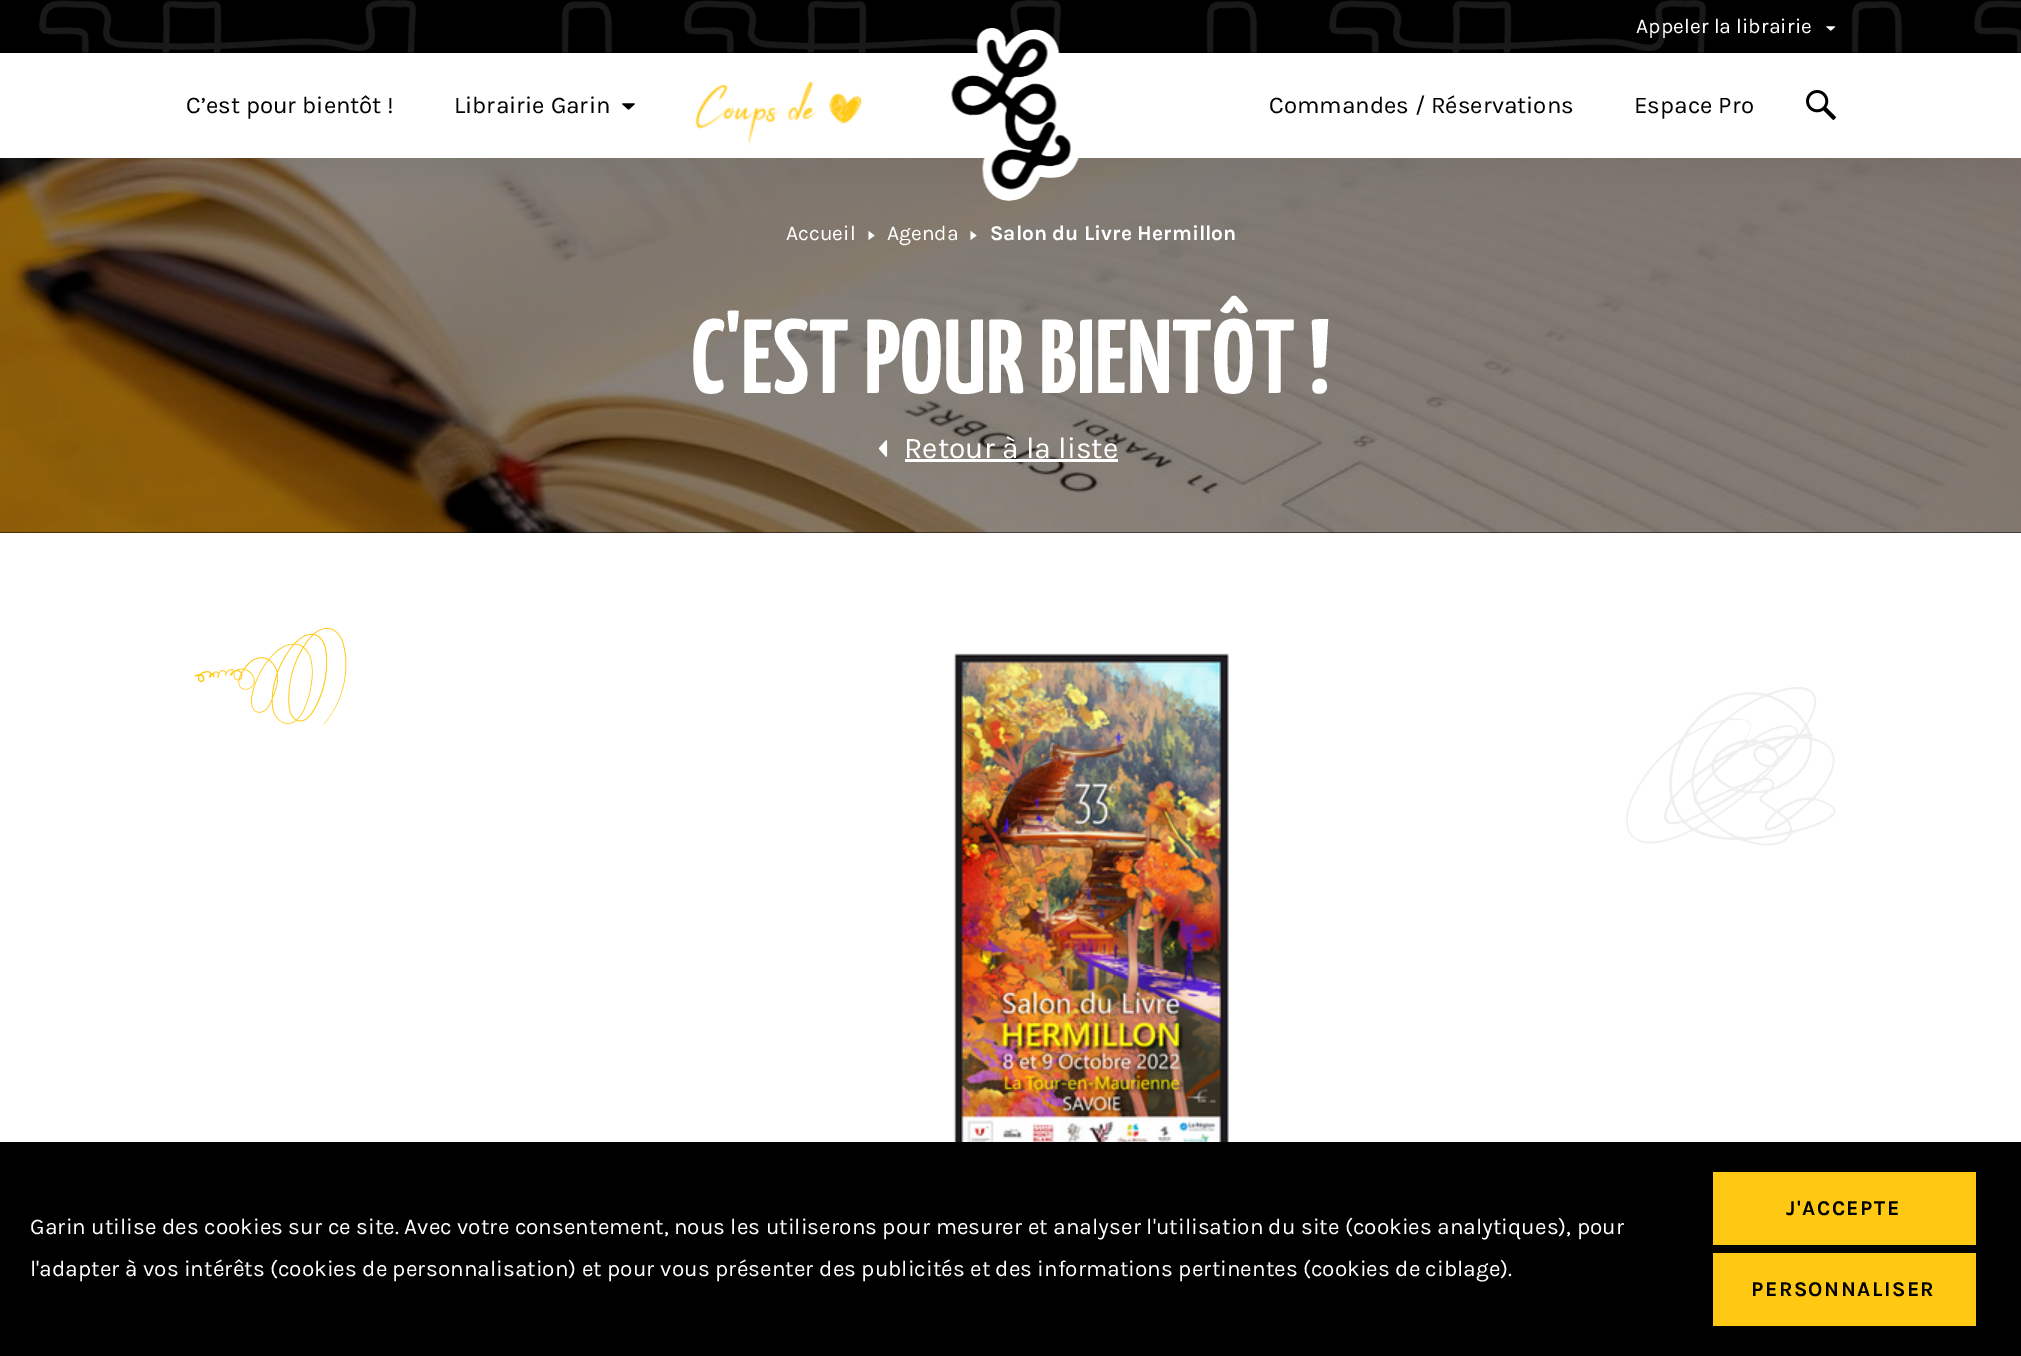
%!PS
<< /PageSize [2021 1356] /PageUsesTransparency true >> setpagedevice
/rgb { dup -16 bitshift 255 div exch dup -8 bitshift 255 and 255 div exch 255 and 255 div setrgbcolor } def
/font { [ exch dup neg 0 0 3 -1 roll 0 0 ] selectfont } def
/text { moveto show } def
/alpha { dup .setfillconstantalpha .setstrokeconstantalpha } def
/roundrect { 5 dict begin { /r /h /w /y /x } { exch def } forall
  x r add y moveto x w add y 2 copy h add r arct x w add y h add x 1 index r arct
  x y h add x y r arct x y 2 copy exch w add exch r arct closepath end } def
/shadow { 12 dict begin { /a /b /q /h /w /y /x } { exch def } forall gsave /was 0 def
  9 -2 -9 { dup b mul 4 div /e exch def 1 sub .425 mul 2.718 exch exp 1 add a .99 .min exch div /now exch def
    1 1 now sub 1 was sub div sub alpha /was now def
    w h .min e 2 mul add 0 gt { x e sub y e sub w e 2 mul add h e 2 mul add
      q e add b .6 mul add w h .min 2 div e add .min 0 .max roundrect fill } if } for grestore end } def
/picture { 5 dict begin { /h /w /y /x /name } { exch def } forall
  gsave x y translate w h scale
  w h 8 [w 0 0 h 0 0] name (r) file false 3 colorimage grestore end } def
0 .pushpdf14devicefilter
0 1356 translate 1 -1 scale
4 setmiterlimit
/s1 { /Karla-Regular 21 font 16#FFFFFF rgb } def
/s2 { /Karla-Regular 24 font 16#000000 rgb } def
/s3 { /Karla-Bold 21 font 16#FFFFFF rgb } def
/s4 { /YanoneKaffeesatz-Bold 105 font 16#FFFFFF rgb } def
/s5 { /Karla-Regular 30 font 16#FFFFFF rgb } def
/s6 { /Karla-Regular 22.5 font 16#FFFFFF rgb } def
16#FFFFFF rgb
0 0 2021 1356 rectfill
16#000000 rgb
0 158 2021 375 rectfill
(pic7.raw) 0 158 2021 375 picture
0 15 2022 158 0 15 0.05 shadow
16#FFFFFF rgb
0 53 2021 105 rectfill
16#000000 rgb
0 0 2021 53 rectfill
(pic1.raw) 39 0 1982 53 picture
s1
(Appeler la librairie) 1636 33 text
(pic2.raw) 1826 26 10 5 picture
(pic3.raw) 951 28 128 173 picture
s2
(C’est pour bientôt !) 186 113 text
(Librairie Garin) 454 113 text
(pic4.raw) 622 103 13 7 picture
(pic5.raw) 695 80 167 66 picture
(Commandes / Réservations) 1269 113 text
(Espace Pro) 1634 113 text
(pic6.raw) 1806 90 30 30 picture
s1
(Accueil) 786 240 text
868.5 240 moveto 868.5 231 lineto 874.5 235.5 lineto closepath fill
(Agenda) 887 240 text
970.5 240 moveto 970.5 231 lineto 976.5 235.5 lineto closepath fill
s3
(Salon du Livre Hermillon) 990 240 text
s4
(C'EST POUR BIENTÔT !) 691 393 text
(pic8.raw) 878 440 10 17 picture
s5
(Retour à la liste) 904 458 text
905 459 213 3 rectfill
(pic9.raw) 194 627 153 98 picture
(pic10.raw) 953 653 276 489 picture
(pic11.raw) 1626 687 210 159 picture
16#000000 rgb
0 1142 2021 214 rectfill
s6
(Garin utilise des cookies sur ce site. Avec votre consentement, nous les utiliserons pour mesurer et analyser l'utilisation du site \(cookies analytiques\), pour) 30 1234 text
(l'adapter à vos intérêts \(cookies de personnalisation\) et pour vous présenter des publicités et des informations pertinentes \(cookies de ciblage\).) 30 1276 text
16#FFC812 rgb
1713 1172 263 73 rectfill
/Karla-Bold 21 font
16#000000 rgb
1786 1215 moveto 1.5 0 (J'ACCEPTE) ashow
16#FFC812 rgb
1713 1253 263 73 rectfill
16#000000 rgb
1751 1296 moveto 1.5 0 (PERSONNALISER) ashow
.poppdf14devicefilter showpage
